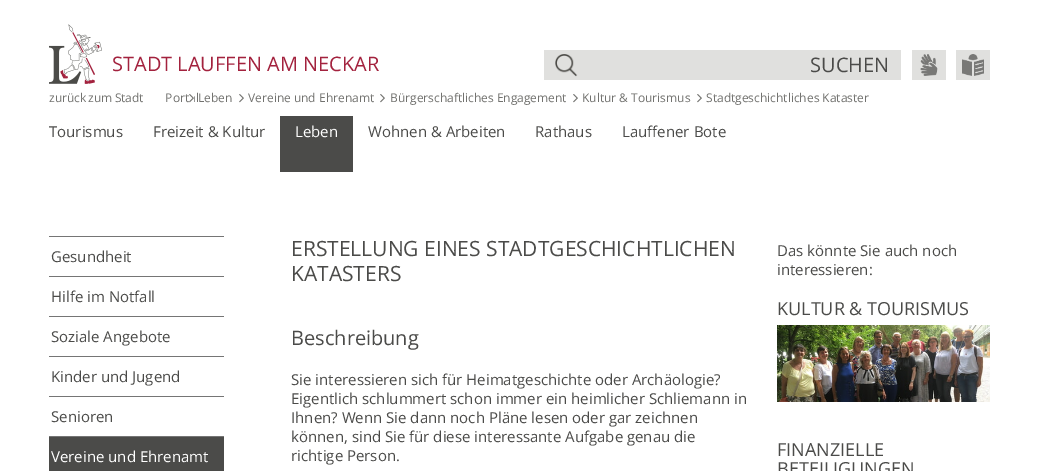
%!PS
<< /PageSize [1039 471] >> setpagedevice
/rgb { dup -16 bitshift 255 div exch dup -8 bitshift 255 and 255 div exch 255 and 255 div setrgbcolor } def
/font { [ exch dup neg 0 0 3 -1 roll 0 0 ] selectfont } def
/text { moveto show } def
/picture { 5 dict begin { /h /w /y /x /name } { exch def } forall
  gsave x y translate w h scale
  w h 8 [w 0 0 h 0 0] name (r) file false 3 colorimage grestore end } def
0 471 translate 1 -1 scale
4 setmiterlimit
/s1 { /OpenSans-Regular 20 font 16#A3223E rgb } def
/s2 { /OpenSans-Regular 20 font 16#4B4B49 rgb } def
/s3 { /OpenSans-Regular 12 font 16#72726F rgb } def
/s4 { /OpenSans-Regular 15 font 16#4B4B49 rgb } def
/s5 { /OpenSans-Regular 15 font 16#FFFFFF rgb } def
/s6 { /OpenSans-Regular 21 font 16#4B4B49 rgb } def
/s7 { /OpenSans-Regular 18 font 16#4B4B49 rgb } def
16#FFFFFF rgb
0 0 1039 471 rectfill
(pic1.raw) 49 24 53 60 picture
s1
(STADT LAUFFEN AM NECKAR) 112 71 text
16#E0E0DE rgb
544 50 357 30 rectfill
(pic2.raw) 555 54 23 23 picture
s2
(SUCHEN) 810 72 text
16#E0E0DE rgb
912 50 34 30 rectfill
(pic3.raw) 920 54 18 22 picture
956 50 34 30 rectfill
(pic4.raw) 962 54 22 22 picture
/OpenSans-Regular 12 font
16#72726F rgb
49 102 moveto -1 0 32 (zurück zum Stadt‑Portal) widthshow
(pic5.raw) 189 94 5 9 picture
(Leben) 198 102 text
(pic5.raw) 239 94 5 9 picture
(Vereine und Ehrenamt) 248 102 text
(pic5.raw) 380 94 5 9 picture
(Bürgerschaftliches Engagement) 390 102 text
(pic5.raw) 573 94 5 9 picture
(Kultur & Tourismus) 582 102 text
(pic5.raw) 697 94 5 9 picture
(Stadtgeschichtliches Kataster) 706 102 text
s4
(Tourismus) 49 137 text
(Freizeit & Kultur) 153 137 text
280 116 73 56 rectfill
s5
(Leben) 295 137 text
s4
(Wohnen & Arbeiten) 368 137 text
(Rathaus) 535 137 text
(Lauffener Bote) 622 137 text
16#757575 rgb
49 236 175 1 rectfill
49 276 175 1 rectfill
s4
(Gesundheit) 51 262 text
16#757575 rgb
49 316 175 1 rectfill
s4
(Hilfe im Notfall) 51 302 text
16#757575 rgb
49 356 175 1 rectfill
s4
(Soziale Angebote) 51 342 text
16#757575 rgb
49 396 175 1 rectfill
s4
(Kinder und Jugend) 51 382 text
16#757575 rgb
49 436 175 1 rectfill
s4
(Senioren) 51 422 text
49 437 175 34 rectfill
s5
(Vereine und Ehrenamt) 51 462 text
s6
(ERSTELLUNG EINES STADTGESCHICHTLICHEN) 291 256 text
(KATASTERS) 291 281 text
s2
(Beschreibung) 291 345 text
s4
(Sie interessieren sich für Heimatgeschichte oder Archäologie?) 291 385 text
(Eigentlich schlummert schon immer ein heimlicher Schliemann in) 291 404 text
(Ihnen? Wenn Sie dann noch Pläne lesen oder gar zeichnen) 291 423 text
(können, sind Sie für diese interessante Aufgabe genau die) 291 442 text
(richtige Person.) 291 461 text
(Das könnte Sie auch noch) 777 256 text
(interessieren:) 777 275 text
s7
(KULTUR & TOURISMUS) 777 315 text
(pic6.raw) 777 325 213 77 picture
(FINANZIELLE) 777 456 text
(BETEILIGUNGEN) 777 475 text
showpage
